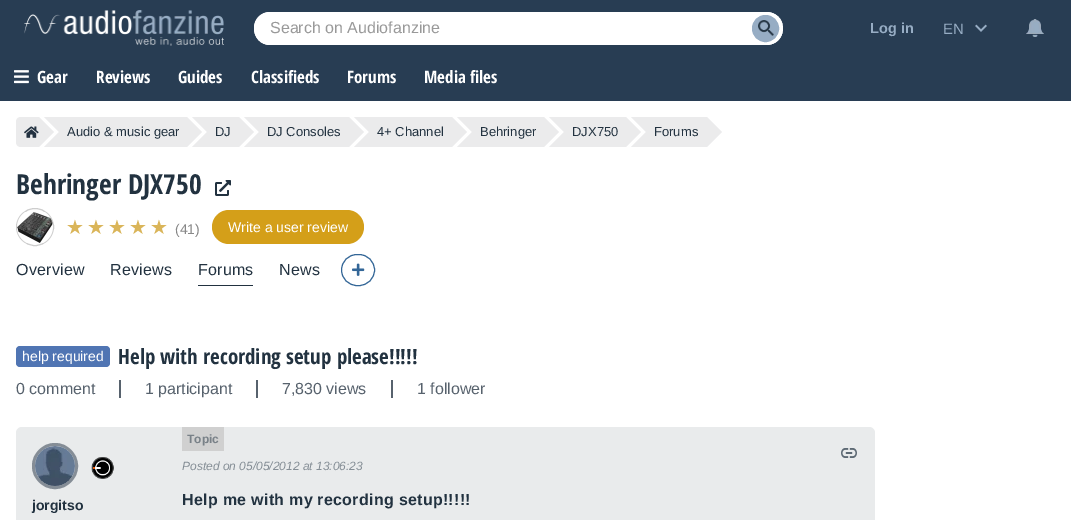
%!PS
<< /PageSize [1071 520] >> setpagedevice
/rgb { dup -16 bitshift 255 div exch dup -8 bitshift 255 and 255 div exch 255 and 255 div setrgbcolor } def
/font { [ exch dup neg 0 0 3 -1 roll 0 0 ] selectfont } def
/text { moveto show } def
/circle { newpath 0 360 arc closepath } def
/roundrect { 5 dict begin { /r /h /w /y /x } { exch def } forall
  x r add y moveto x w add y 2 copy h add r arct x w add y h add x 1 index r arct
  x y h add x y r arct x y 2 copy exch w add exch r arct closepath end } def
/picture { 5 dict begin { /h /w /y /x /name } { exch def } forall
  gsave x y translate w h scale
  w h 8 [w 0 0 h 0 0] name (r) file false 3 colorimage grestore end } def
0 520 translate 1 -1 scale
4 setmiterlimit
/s1 { /LiberationSans-Regular 16 font 16#999999 rgb } def
/s2 { /LiberationSans-Bold 14.5 font 16#97ADC4 rgb } def
/s3 { /LiberationSans-Regular 15 font 16#97ADC4 rgb } def
/s4 { /OpenSansCondensed-Bold 17 font 16#FFFFFF rgb } def
/s5 { /LiberationSans-Regular 13 font 16#223240 rgb } def
/s6 { /OpenSansCondensed-Bold 27.5 font 16#223240 rgb } def
/s7 { /LiberationSans-Regular 14 font 16#888888 rgb } def
/s8 { /LiberationSans-Regular 14 font 16#FFFFFF rgb } def
/s9 { /OpenSansCondensed-Bold 21 font 16#223240 rgb } def
/s10 { /LiberationSans-Regular 16 font 16#57626D rgb } def
/s11 { /LiberationSans-Bold 12 font 16#798188 rgb } def
/s12 { /LiberationSans-Italic 12 font 16#858E96 rgb } def
/s13 { /LiberationSans-Bold 14 font 16#223240 rgb } def
16#FFFFFF rgb
0 0 1071 520 rectfill
16#283D53 rgb
0 0 1071 101 rectfill
(pic1.raw) 24 10 200 36 picture
16#FFFFFF rgb
254 12 529 33 16.5 roundrect fill
270 12 moveto 766 12 lineto 776 12 783 19 783 28 curveto 783 38 776 45 766 45 curveto 270 45 lineto 261 45 254 38 254 28 curveto 254 19 261 12 270 12 curveto closepath 270 13 moveto 766 13 lineto 776 13 783 20 783 28 curveto 783 37 776 44 766 44 curveto 270 44 lineto 262 44 255 37 255 28 curveto 255 20 262 13 270 13 curveto closepath eofill
s1
(Search on Audiofanzine) 270 33 text
16#97ADC4 rgb
765.5 28.5 13 circle gsave fill grestore
stroke
(pic2.raw) 758 20 16 16 picture
s2
(Log in) 870 33 text
(pic3.raw) 975 24 12 8 picture
s3
(EN) 943 34 text
(pic4.raw) 1026 19 18 18 picture
(pic5.raw) 14 70 15 14 picture
s4
(Gear) 37 83 text
(Reviews) 96 83 text
(Guides) 178 83 text
(Classifieds) 251 83 text
(Forums) 347 83 text
(Media files) 424 83 text
16#EBEBEC rgb
21 117 moveto 39 117 lineto 39 147 lineto 21 147 lineto 18 147 16 145 16 142 curveto 16 122 lineto 16 119 18 117 21 117 curveto closepath fill
(pic6.raw) 24 126 15 12 picture
39 147 moveto 39 117 lineto 54 132 lineto closepath fill
59 117 128 30 rectfill
44 117 moveto 59 117 lineto 59 132 lineto closepath 59 147 moveto 44 147 lineto 59 132 lineto closepath fill
s5
(Audio & music gear) 67 136 text
16#EBEBEC rgb
187 147 moveto 187 117 lineto 202 132 lineto closepath fill
207 117 32 30 rectfill
s5
(DJ) 215 136 text
16#EBEBEC rgb
192 117 moveto 207 117 lineto 207 132 lineto closepath 207 147 moveto 192 147 lineto 207 132 lineto closepath 239 147 moveto 239 117 lineto 254 132 lineto closepath fill
259 117 90 30 rectfill
244 117 moveto 259 117 lineto 259 132 lineto closepath 259 147 moveto 244 147 lineto 259 132 lineto closepath fill
s5
(DJ Consoles) 267 136 text
16#EBEBEC rgb
349 147 moveto 349 117 lineto 364 132 lineto closepath fill
369 117 83 30 rectfill
354 117 moveto 369 117 lineto 369 132 lineto closepath 369 147 moveto 354 147 lineto 369 132 lineto closepath fill
s5
(4+ Channel) 377 136 text
16#EBEBEC rgb
452 147 moveto 452 117 lineto 467 132 lineto closepath fill
472 117 72 30 rectfill
457 117 moveto 472 117 lineto 472 132 lineto closepath 472 147 moveto 457 147 lineto 472 132 lineto closepath fill
s5
(Behringer) 480 136 text
16#EBEBEC rgb
544 147 moveto 544 117 lineto 559 132 lineto closepath fill
564 117 62 30 rectfill
549 117 moveto 564 117 lineto 564 132 lineto closepath 564 147 moveto 549 147 lineto 564 132 lineto closepath fill
s5
(DJX750) 572 136 text
16#EBEBEC rgb
626 147 moveto 626 117 lineto 641 132 lineto closepath fill
646 117 61 30 rectfill
631 117 moveto 646 117 lineto 646 132 lineto closepath 646 147 moveto 631 147 lineto 646 132 lineto closepath fill
s5
(Forums) 654 136 text
16#EBEBEC rgb
707 147 moveto 707 117 lineto 722 132 lineto closepath fill
s6
(Behringer DJX750) 16 194 text
(pic7.raw) 215 180 16 16 picture
16#CDCDCD rgb
35 227 18.5 circle stroke
(pic8.raw) 17 212 36 31 picture
/DejaVuSans-Regular 20 font
16#DAB559 rgb
66 234 moveto 3 0 (★★★★★) ashow
s7
(\(41\)) 175 234 text
16#D49F19 rgb
212 210 152 34 17 roundrect fill
s8
(Write a user review) 228 232 text
/LiberationSans-Regular 16 font
16#223240 rgb
16 275 moveto 0.25 0 (Overview) ashow
110 275 moveto 0.25 0 (Reviews) ashow
198 285 55 1 rectfill
198 275 moveto 0.25 0 (Forums) ashow
279 275 moveto 0.25 0 (News) ashow
16#336697 rgb
341.5 254.5 33 31 15.5 roundrect stroke
(pic9.raw) 352 263 13 13 picture
16#5075B3 rgb
16 346 94 21 4 roundrect fill
s8
(help required) 22 361 text
s9
(Help with recording setup please!!!!!) 118 364 text
16#57626D rgb
119 380 2 18 rectfill
s10
(0 comment) 16 394 text
256 380 2 18 rectfill
(1 participant) 145 394 text
391 380 2 18 rectfill
(7,830 views) 282 394 text
(1 follower) 417 394 text
16#E9EBEC rgb
16 427 859 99 6 roundrect fill
16#D0D0D0 rgb
182 427 42 24 rectfill
s11
(Topic) 187 443 text
(pic10.raw) 841 448 16 10 picture
s12
(Posted on 05/05/2012 at 13:06:23) 182 470 text
16#858D96 rgb
3 setlinewidth
55 466 21.5 circle stroke
(pic11.raw) 35 446 40 40 picture
(pic12.raw) 91 457 23 22 picture
s13
(jorgitso) 32 510 text
/LiberationSans-Bold 16 font
182 505 moveto 0.3 0 (Help me with my recording setup!!!!!) ashow
showpage
